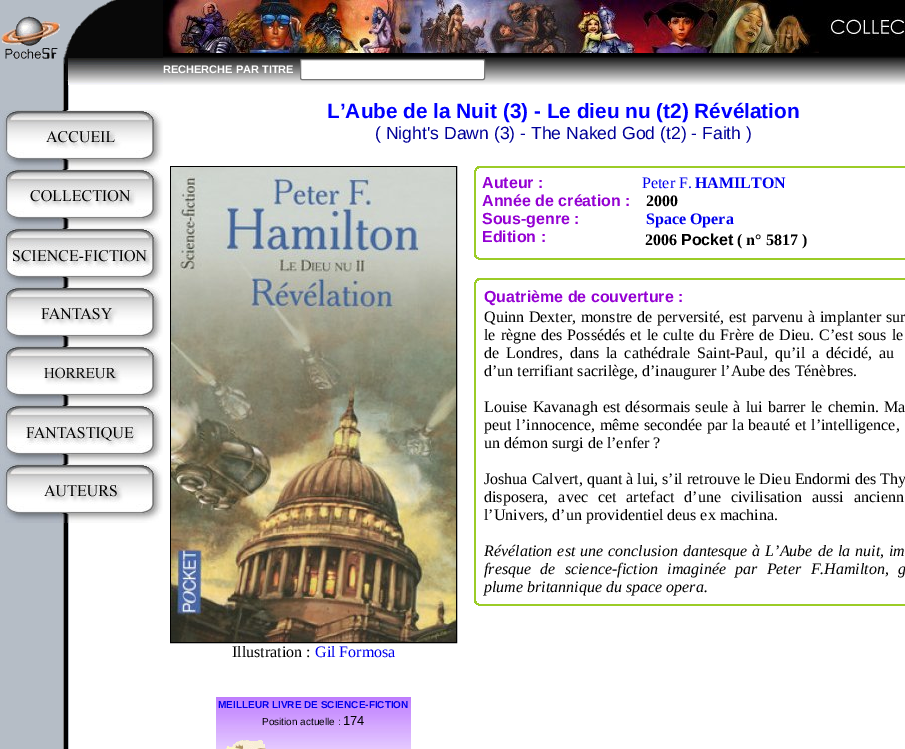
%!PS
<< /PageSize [905 749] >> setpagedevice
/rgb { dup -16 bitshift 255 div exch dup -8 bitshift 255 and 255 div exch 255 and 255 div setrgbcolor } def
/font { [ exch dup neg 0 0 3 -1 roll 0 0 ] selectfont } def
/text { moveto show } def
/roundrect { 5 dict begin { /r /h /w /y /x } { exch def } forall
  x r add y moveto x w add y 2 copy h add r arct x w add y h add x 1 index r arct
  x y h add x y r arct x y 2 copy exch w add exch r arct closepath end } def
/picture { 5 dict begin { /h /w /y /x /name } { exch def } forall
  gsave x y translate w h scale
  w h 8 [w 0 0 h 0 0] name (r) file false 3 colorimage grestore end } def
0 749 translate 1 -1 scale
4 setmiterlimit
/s1 { /LiberationSans-Bold 11 font 16#FFFFFF rgb } def
/s2 { /LiberationSans-Bold 20.8 font 16#0000FF rgb } def
/s3 { /LiberationSans-Regular 17.6 font 16#000099 rgb } def
/s4 { /LiberationSans-Bold 16 font 16#9400D3 rgb } def
/s5 { /LiberationSerif-Regular 16 font 16#0000EE rgb } def
/s6 { /LiberationSerif-Bold 16 font 16#0000EE rgb } def
/s7 { /LiberationSerif-Bold 16 font 16#000000 rgb } def
/s8 { /LiberationSans-Bold 16 font 16#000000 rgb } def
/s9 { /LiberationSerif-Regular 16 font 16#000000 rgb } def
/s10 { /LiberationSerif-Italic 16 font 16#000000 rgb } def
/s11 { /LiberationSans-Bold 10 font 16#0000EE rgb } def
/s12 { /LiberationSans-Regular 10 font 16#000000 rgb } def
/s13 { /LiberationSans-Regular 13 font 16#000000 rgb } def
16#FFFFFF rgb
0 0 905 749 rectfill
(pic1.raw) 0 0 69 749 picture
(pic2.raw) 1 0 162 85 picture
(pic3.raw) 0 110 163 50 picture
(pic4.raw) 5 160 154 9 picture
(pic5.raw) 0 169 163 50 picture
(pic4.raw) 5 219 154 9 picture
(pic6.raw) 0 228 163 50 picture
(pic4.raw) 5 278 154 9 picture
(pic7.raw) 0 287 163 50 picture
(pic4.raw) 5 337 154 9 picture
(pic8.raw) 0 346 163 50 picture
(pic4.raw) 5 396 154 9 picture
(pic9.raw) 0 405 163 50 picture
(pic4.raw) 5 455 154 9 picture
(pic10.raw) 0 464 163 50 picture
(pic4.raw) 5 514 154 9 picture
16#000000 rgb
163 53 742 3 rectfill
(pic11.raw) 163 0 742 53 picture
(pic12.raw) 163 56 137 29 picture
s1
(RECHERCHE PAR TITRE) 163 73 text
(pic13.raw) 300 56 605 29 picture
300.5 59.5 184 20 1.5 roundrect gsave fill grestore
16#767676 rgb
stroke
s2
(L’Aube de la Nuit \(3\) - Le dieu nu \(t2\) Révélation) 327 118 text
s3
(\( Night's Dawn \(3\) - The Naked God \(t2\) - Faith \)) 375 139 text
(pic14.raw) 474 166 8 8 picture
16#9BCC27 rgb
482 166 423 2 rectfill
474 174 2 78 rectfill
s4
(Auteur :) 482 188 text
s5
(Peter F.) 642 188 text
s6
(HAMILTON) 695 188 text
s4
(Année de création :) 482 206 text
s7
(2000) 646 206 text
s4
(Sous-genre :) 482 224 text
s6
(Space Opera) 646 224 text
s4
(Edition :) 482 242 text
s7
(2006) 645 245 text
s8
(Pocket) 681 245 text
s7
(\( n° 5817 \)) 737 245 text
(pic15.raw) 474 252 8 8 picture
16#9BCC27 rgb
482 258 423 2 rectfill
(pic14.raw) 474 278 8 8 picture
482 278 423 2 rectfill
474 286 2 312 rectfill
s4
(Quatrième de couverture :) 484 302 text
/LiberationSerif-Regular 16 font
16#000000 rgb
484 322 moveto 0.75 0 32 (Quinn Dexter, monstre de perversité, est parvenu à implanter sur) widthshow
484 340 moveto 1 0 32 (le règne des Possédés et le culte du Frère de Dieu. C’est sous le) widthshow
484 358 moveto 3 0 32 (de Londres, dans la cathédrale Saint-Paul, qu’il a décidé, au) widthshow
(d’un terrifiant sacrilège, d’inaugurer l’Aube des Ténèbres.) 484 376 text
484 412 moveto 1.1 0 32 (Louise Kavanagh est désormais seule à lui barrer le chemin. Ma) widthshow
484 430 moveto 0.75 0 32 (peut l’innocence, même secondée par la beauté et l’intelligence,) widthshow
(un démon surgi de l’enfer ?) 484 448 text
(Joshua Calvert, quant à lui, s’il retrouve le Dieu Endormi des Thy) 484 484 text
484 502 moveto 6 0 32 (disposera, avec cet artefact d’une civilisation aussi ancienn) widthshow
(l’Univers, d’un providentiel deus ex machina.) 484 520 text
/LiberationSerif-Italic 16 font
484 556 moveto 1 0 32 (Révélation est une conclusion dantesque à L’Aube de la nuit, im) widthshow
484 574 moveto 5.25 0 32 (fresque de science-fiction imaginée par Peter F.Hamilton, g) widthshow
(plume britannique du space opera.) 484 592 text
(pic15.raw) 474 598 8 8 picture
16#9BCC27 rgb
482 604 423 2 rectfill
16#000000 rgb
170.5 166.5 286 476 rectstroke
(pic16.raw) 171 167 285 475 picture
s9
(Illustration :) 232 657 text
s5
(Gil Formosa) 315 657 text
(pic17.raw) 216 697 195 52 picture
s11
(MEILLEUR LIVRE DE SCIENCE-FICTION) 218 708 text
s12
(Position actuelle :) 262 725 text
s13
(174) 343 725 text
(pic18.raw) 226 740 40 9 picture
showpage
